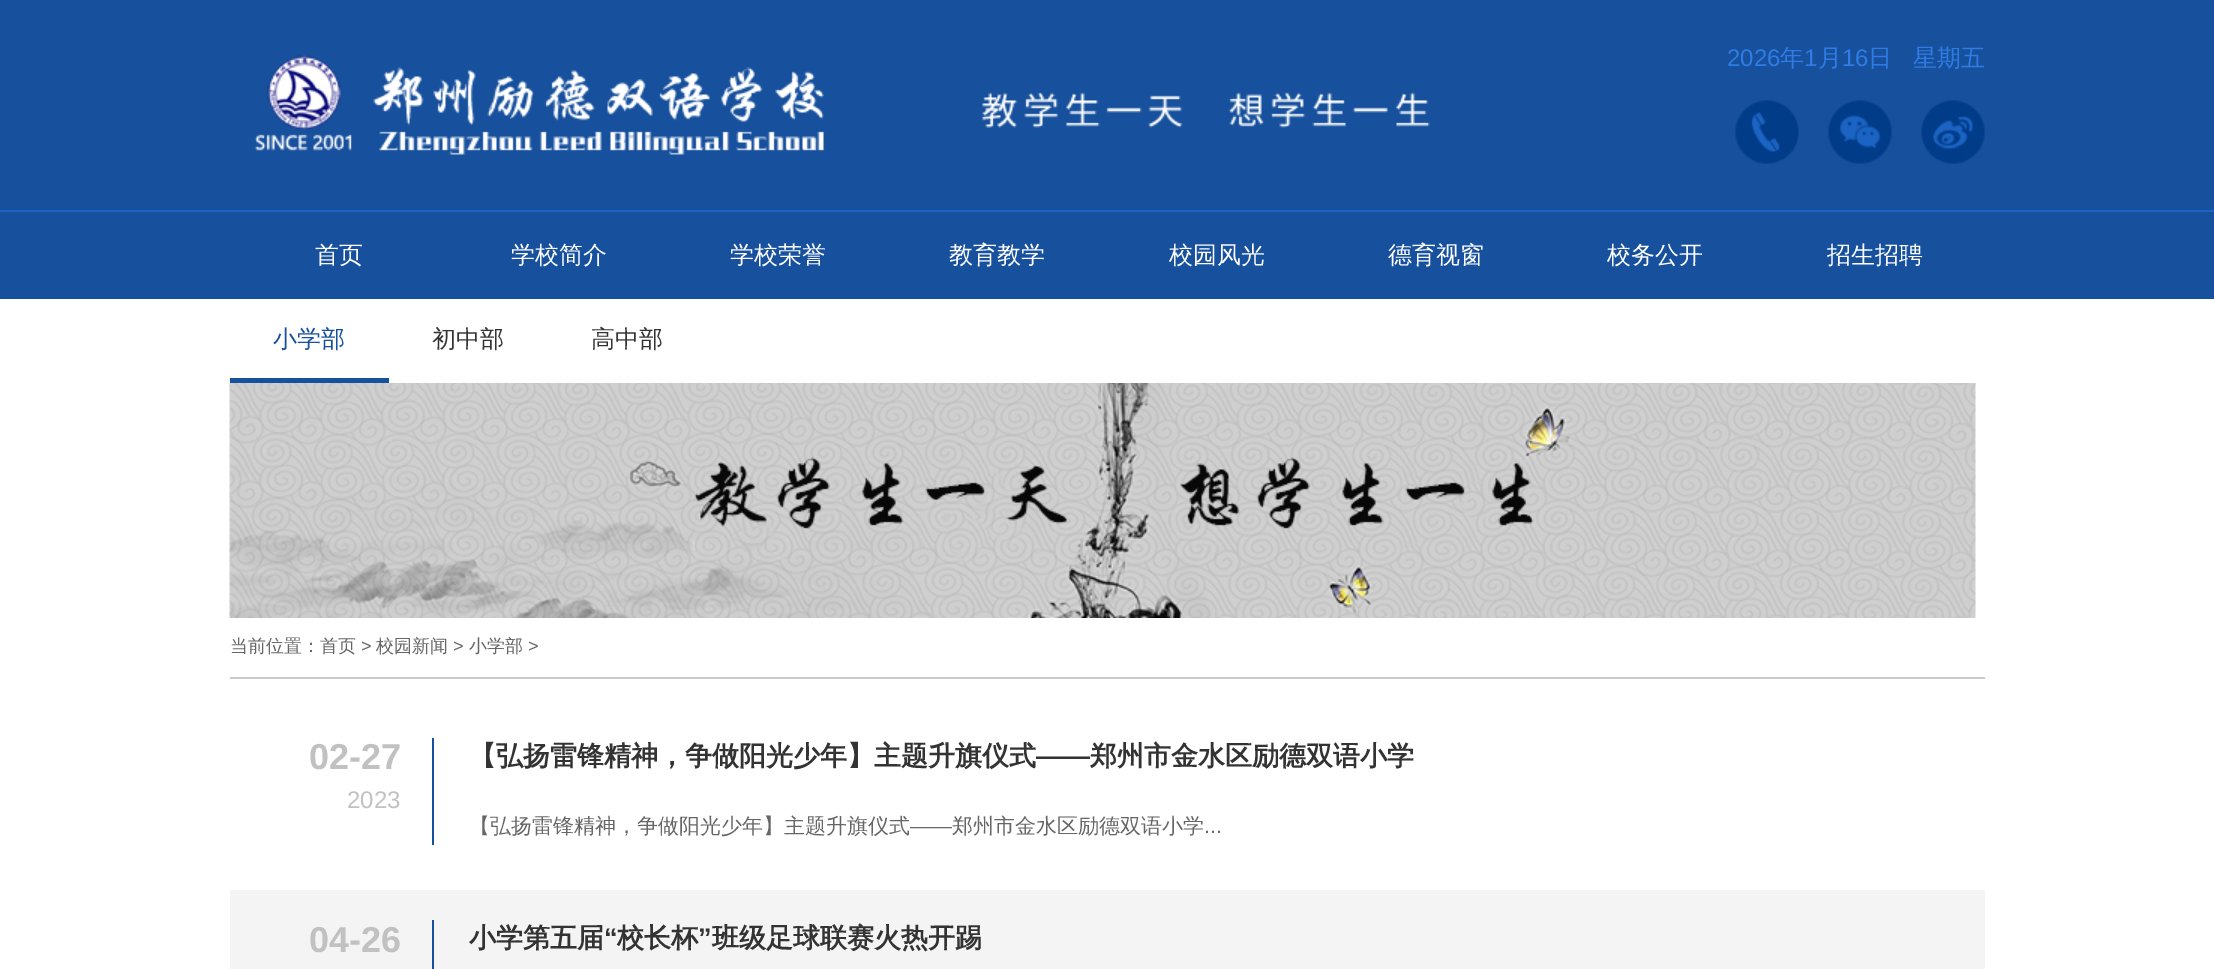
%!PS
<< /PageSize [2214 969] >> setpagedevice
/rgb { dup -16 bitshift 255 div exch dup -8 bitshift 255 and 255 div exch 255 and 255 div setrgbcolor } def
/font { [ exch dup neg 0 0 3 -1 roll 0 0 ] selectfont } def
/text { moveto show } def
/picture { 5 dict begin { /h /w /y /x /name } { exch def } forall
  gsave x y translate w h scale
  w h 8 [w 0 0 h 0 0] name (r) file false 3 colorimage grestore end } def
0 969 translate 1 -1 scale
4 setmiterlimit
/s1 { /LiberationSans-Regular 24 font 16#2F7DE4 rgb } def
/s2 { /WenQuanYiZenHei-Medium 24 font 16#2F7DE4 rgb } def
/s3 { /WenQuanYiZenHei-Medium 24 font 16#FFFFFF rgb } def
/s4 { /WenQuanYiZenHei-Medium 24 font 16#17509D rgb } def
/s5 { /WenQuanYiZenHei-Medium 24 font 16#333333 rgb } def
/s6 { /WenQuanYiZenHei-Medium 18 font 16#666666 rgb } def
/s7 { /LiberationSans-Regular 18 font 16#666666 rgb } def
/s8 { /LiberationSans-Bold 36 font 16#C1C1C1 rgb } def
/s9 { /LiberationSans-Regular 24 font 16#C1C1C1 rgb } def
/s10 { /WenQuanYiZenHei-Bold 27 font 16#333333 rgb } def
/s11 { /LiberationSans-Bold 27 font 16#333333 rgb } def
/s12 { /WenQuanYiZenHei-Medium 21 font 16#666666 rgb } def
/s13 { /LiberationSans-Regular 21 font 16#666666 rgb } def
16#FFFFFF rgb
0 0 2214 969 rectfill
16#17509D rgb
0 0 2214 299 rectfill
(pic1.raw) 254 55 571 100 picture
(pic2.raw) 982 92 448 36 picture
s1
(2026) 1727 66 text
s2
(年) 1780 66 text
s1
(1) 1804 66 text
s2
(月) 1818 66 text
s1
(16) 1842 66 text
s2
(日) 1868 66 text
(星期五) 1913 66 text
(pic3.raw) 1735 100 64 64 picture
(pic4.raw) 1828 100 64 64 picture
(pic5.raw) 1921 100 64 64 picture
16#1C64C4 rgb
0 210 2214 2 rectfill
s3
(首页) 315 263 text
(学校简介) 511 263 text
(学校荣誉) 730 263 text
(教育教学) 949 263 text
(校园风光) 1169 263 text
(德育视窗) 1388 263 text
(校务公开) 1607 263 text
(招生招聘) 1827 263 text
(pic6.raw) 229 382 1747 236 picture
230 382 1746 1 rectfill
s4
(小学部) 273 347 text
s5
(初中部) 432 347 text
(高中部) 591 347 text
16#17509D rgb
230 378 159 5 rectfill
16#CACACA rgb
230 677 1755 2 rectfill
s6
(当前位置：首页) 230 652 text
s7
(>) 361 652 text
s6
(校园新闻) 376 652 text
s7
(>) 453 652 text
s6
(小学部) 469 652 text
s7
(>) 528 652 text
s8
(02-27) 309 769 text
s9
(2023) 347 808 text
16#17509D rgb
432 738 2 107 rectfill
s10
(【弘扬雷锋精神，争做阳光少年】主题升旗仪式) 469 765 text
s11
(——) 1036 765 text
s10
(郑州市金水区励德双语小学) 1090 765 text
s12
(【弘扬雷锋精神，争做阳光少年】主题升旗仪式) 469 833 text
s13
(——) 910 833 text
s12
(郑州市金水区励德双语小学) 952 833 text
s13
(...) 1204 833 text
16#F4F4F4 rgb
230 890 1755 79 rectfill
s8
(04-26) 309 952 text
16#17509D rgb
432 920 2 49 rectfill
s10
(小学第五届) 469 947 text
s11
(“) 604 947 text
s10
(校长杯) 617 947 text
s11
(”) 698 947 text
s10
(班级足球联赛火热开踢) 712 947 text
showpage
